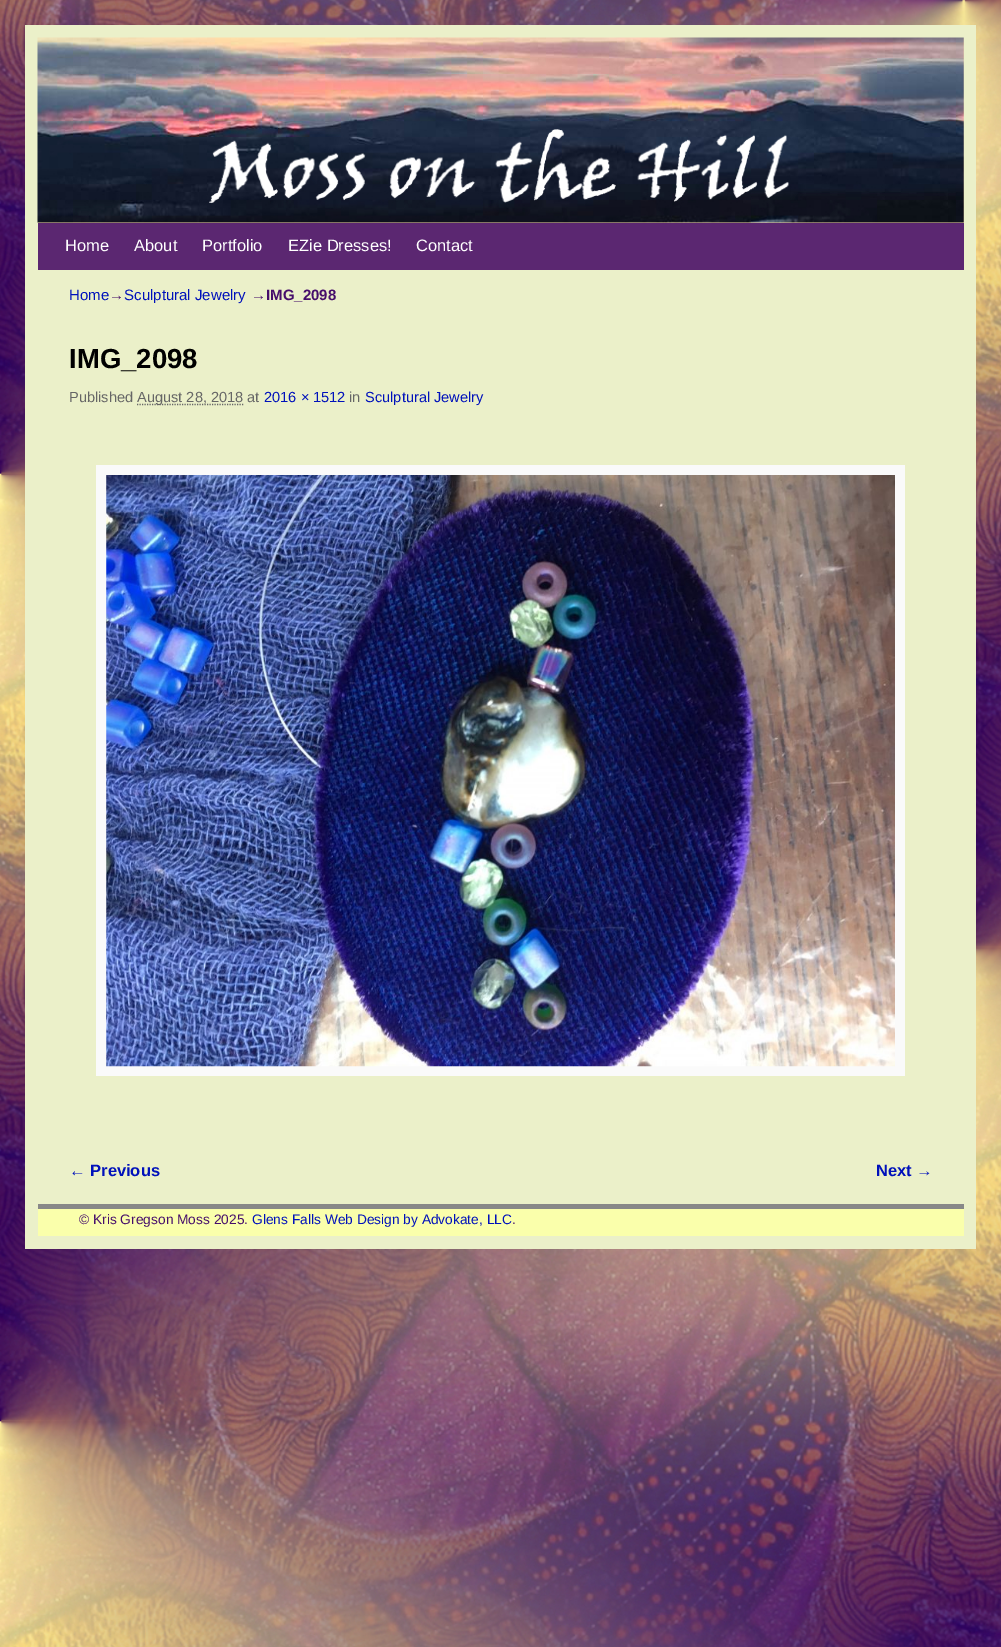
%!PS
<< /PageSize [1001 1647] >> setpagedevice
/rgb { dup -16 bitshift 255 div exch dup -8 bitshift 255 and 255 div exch 255 and 255 div setrgbcolor } def
/font { [ exch dup neg 0 0 3 -1 roll 0 0 ] selectfont } def
/text { moveto show } def
/picture { 5 dict begin { /h /w /y /x /name } { exch def } forall
  gsave x y translate w h scale
  w h 8 [w 0 0 h 0 0] name (r) file false 3 colorimage grestore end } def
0 1647 translate 1 -1 scale
4 setmiterlimit
/s1 { /LiberationSans-Regular 16.5 font 16#FFFFFF rgb } def
/s2 { /LiberationSans-Regular 15 font 16#0011BB rgb } def
/s3 { /LiberationSans-Regular 15 font 16#460E6B rgb } def
/s4 { /LiberationSans-Bold 15 font 16#460E6B rgb } def
/s5 { /LiberationSans-Bold 27.5 font 16#000000 rgb } def
/s6 { /LiberationSans-Regular 14.6 font 16#666666 rgb } def
/s7 { /LiberationSans-Regular 14.6 font 16#0011BB rgb } def
/s8 { /LiberationSans-Bold 16.5 font 16#0011BB rgb } def
/s9 { /LiberationSans-Regular 13.75 font 16#460E6B rgb } def
/s10 { /LiberationSans-Regular 13.75 font 16#0011BB rgb } def
16#FFFFFF rgb
0 0 1001 1647 rectfill
(pic1.raw) 0 0 1001 1647 picture
16#EBF0C9 rgb
25 25 951 1224 rectfill
16#FFDEAD rgb
38 38 926 185 rectfill
(pic2.raw) 37 37 927 186 picture
16#5B2771 rgb
38 223 926 47 rectfill
s1
(Home) 65 251 text
(About) 134 251 text
(Portfolio) 202 251 text
(EZie Dresses!) 288 251 text
(Contact) 416 251 text
s2
(Home) 69 300 text
s3
(→) 109 300 text
s2
(Sculptural Jewelry) 124 300 text
s3
(→) 251 300 text
s4
(IMG_2098) 266 300 text
s5
(IMG_2098) 69 368 text
s6
(Published) 69 402 text
1.2 setlinewidth
[1.25 1.25] 0 setdash
137 404.5 moveto 243.5 404.5 lineto stroke
(August 28, 2018 at) 137 402 text
s7
(2016 × 1512) 264 402 text
s6
(in) 349 402 text
s7
(Sculptural Jewelry) 365 402 text
16#FAFAFA rgb
96 465 809 611 rectfill
(pic3.raw) 106 475 789 592 picture
s8
(← Previous) 69 1176 text
(Next →) 876 1176 text
16#FAFFAB rgb
38 1209 926 27 rectfill
16#888888 rgb
38 1204 926 5 rectfill
s9
(© Kris Gregson Moss 2025.) 79 1224 text
s10
(Glens Falls Web Design by Advokate, LLC) 252 1224 text
s9
(.) 512 1224 text
showpage
